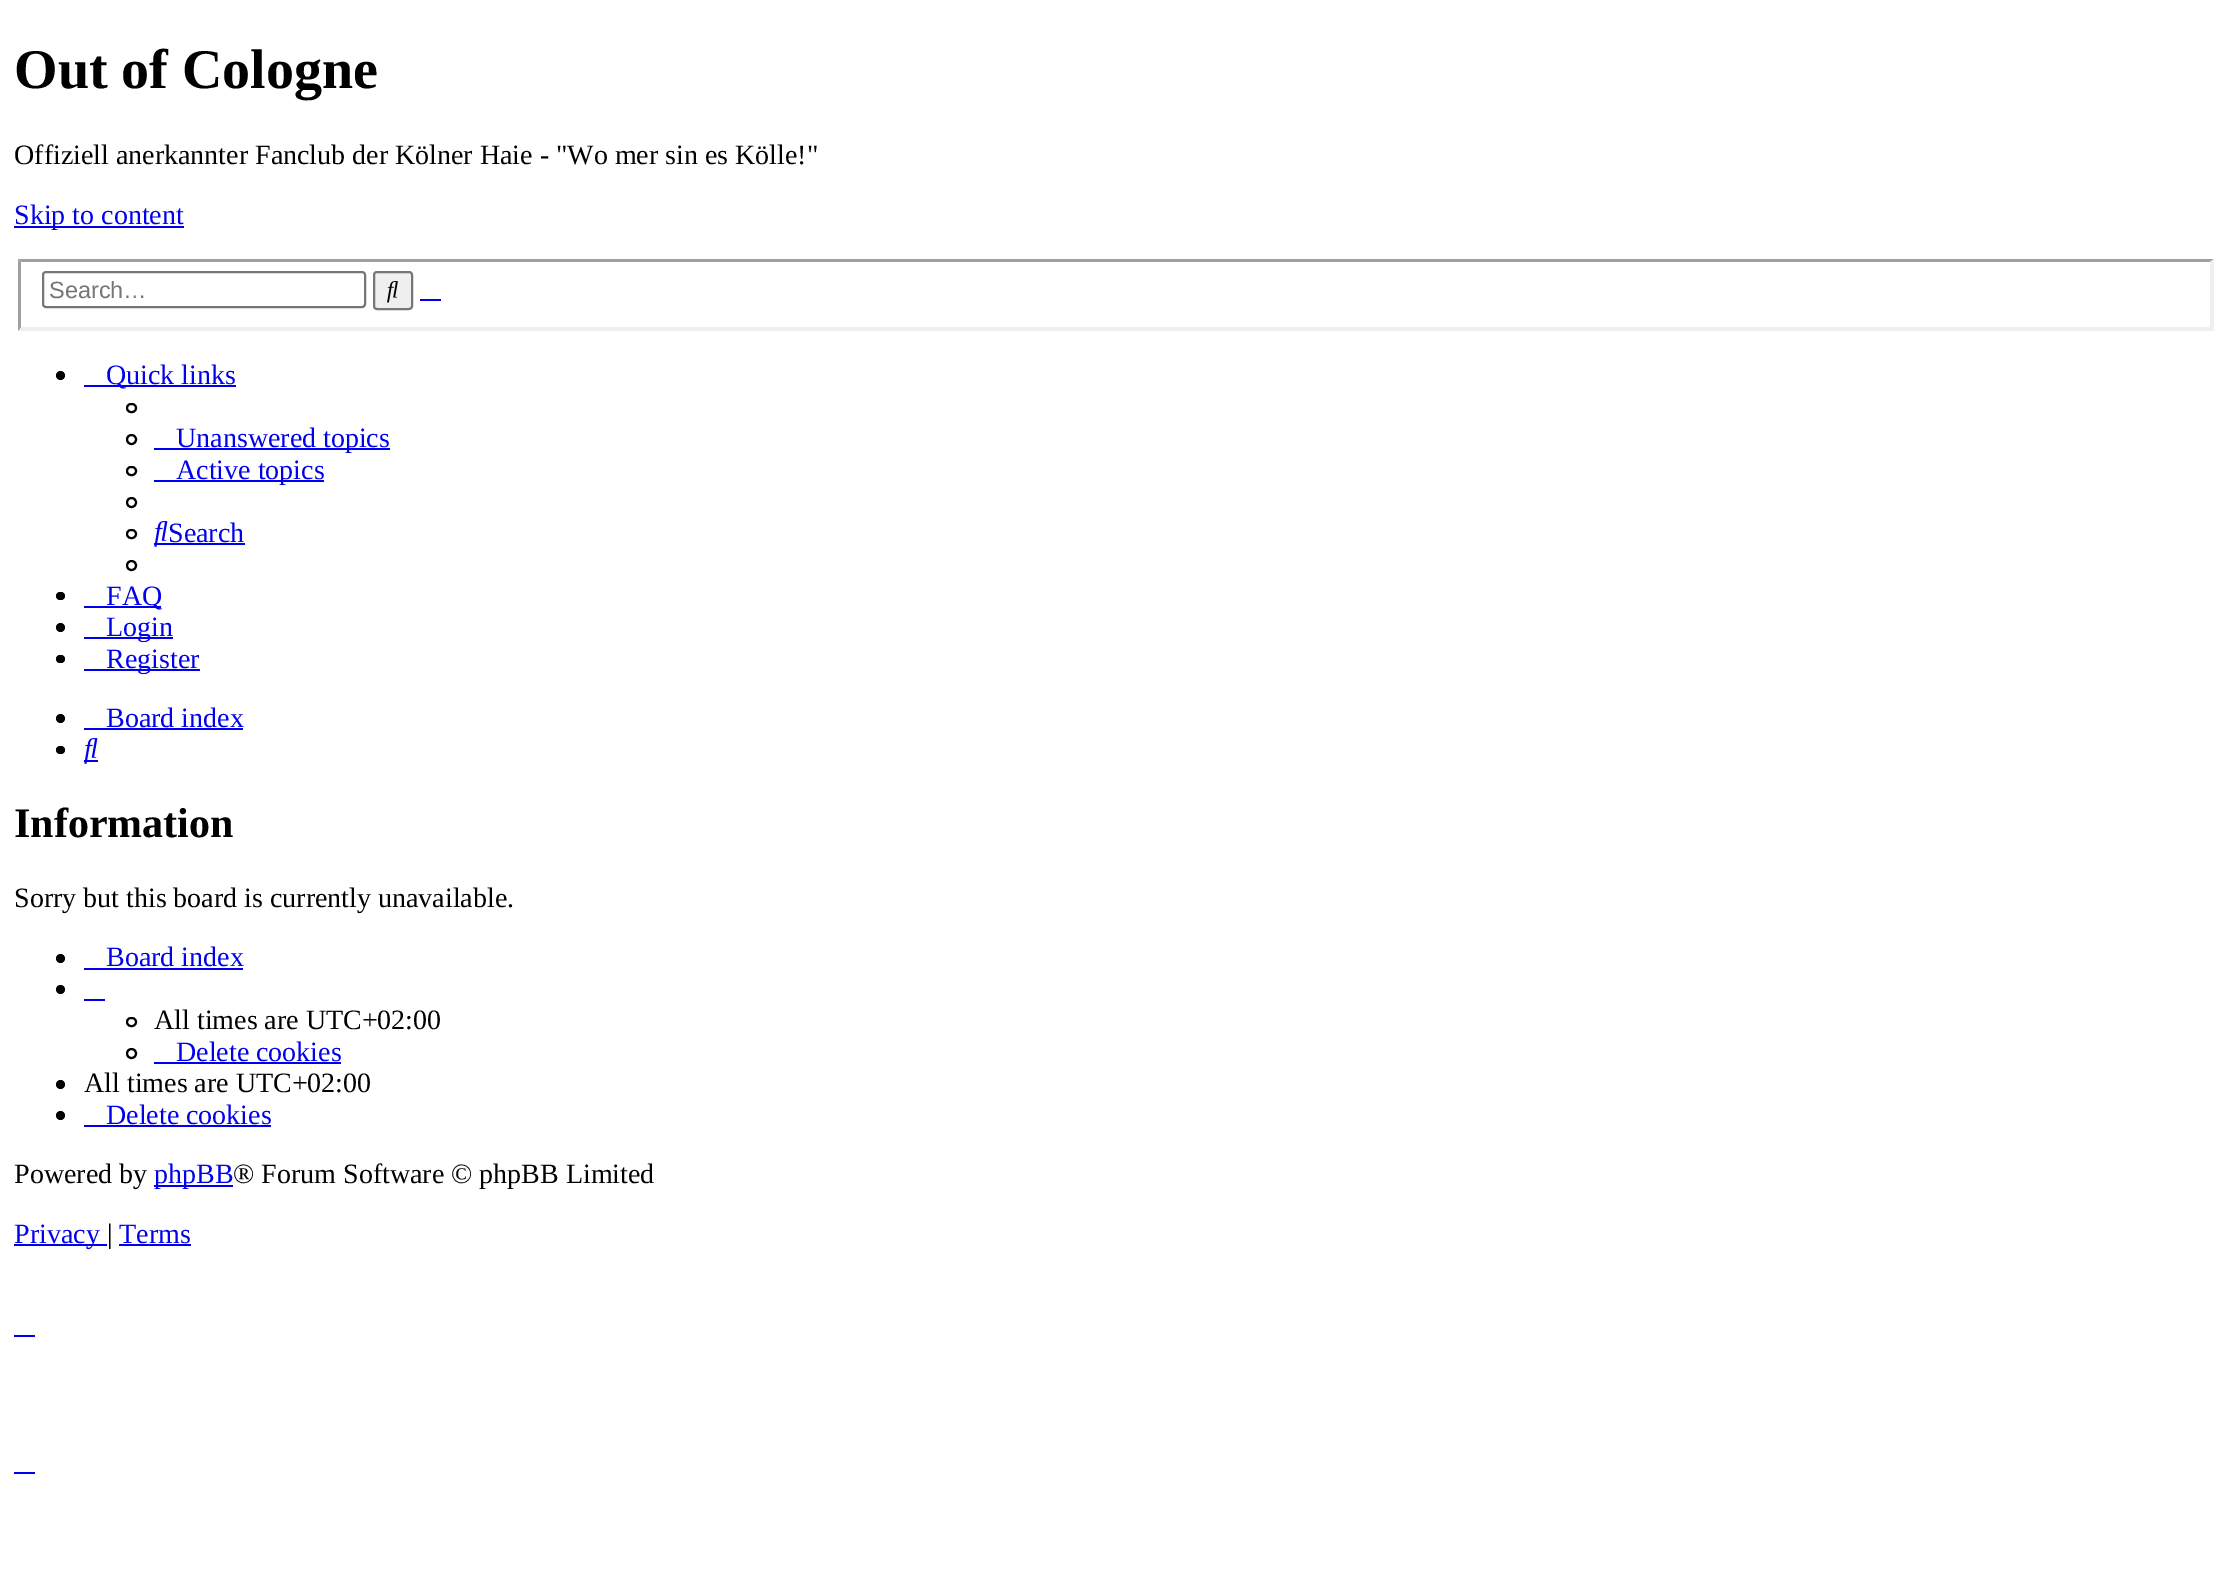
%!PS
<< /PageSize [2230 1596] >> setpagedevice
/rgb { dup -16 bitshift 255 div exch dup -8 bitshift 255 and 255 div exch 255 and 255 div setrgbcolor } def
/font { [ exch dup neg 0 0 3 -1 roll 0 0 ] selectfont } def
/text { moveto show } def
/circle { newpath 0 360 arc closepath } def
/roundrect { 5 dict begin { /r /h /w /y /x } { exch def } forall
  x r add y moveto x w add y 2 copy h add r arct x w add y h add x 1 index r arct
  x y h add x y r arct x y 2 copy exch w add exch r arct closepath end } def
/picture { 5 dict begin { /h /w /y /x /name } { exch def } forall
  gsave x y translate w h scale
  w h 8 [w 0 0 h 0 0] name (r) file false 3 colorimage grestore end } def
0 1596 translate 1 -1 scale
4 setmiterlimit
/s1 { /LiberationSerif-Bold 56 font 16#000000 rgb } def
/s2 { /LiberationSerif-Regular 28 font 16#000000 rgb } def
/s3 { /LiberationSerif-Regular 28 font 16#0000EE rgb } def
/s4 { /LiberationSans-Regular 23.5 font 16#757575 rgb } def
/s5 { /LiberationSerif-Bold 42 font 16#000000 rgb } def
16#FFFFFF rgb
0 0 2230 1596 rectfill
s1
(Out of Cologne) 14 88 text
s2
(Offiziell anerkannter Fanclub der Kölner Haie - "Wo mer sin es Kölle!") 14 164 text
16#0000EE rgb
14 226 170 2 rectfill
(Skip to content) 14 224 text
16#9F9F9F rgb
18 259 moveto 2214 259 lineto 2210 262 lineto 21 262 lineto closepath fill
16#EFEFEF rgb
2214 259 moveto 2214 331 lineto 2210 327 lineto 2210 262 lineto closepath fill
2214 331 moveto 18 331 lineto 21 327 lineto 2210 327 lineto closepath fill
16#9F9F9F rgb
18 331 moveto 18 259 lineto 21 262 lineto 21 327 lineto closepath fill
16#767676 rgb
2 setlinewidth
43 272 322 35 3 roundrect stroke
s4
(Search…) 49 298 text
16#EFEFEF rgb
374 272 38 37 3 roundrect gsave fill grestore
16#767676 rgb
stroke
(pic1.raw) 387 281 11 22 picture
16#0000EE rgb
420 299 21 2 rectfill
16#000000 rgb
60.5 375.5 4.5 circle fill
16#0000EE rgb
84 385 152 2 rectfill
s3
(Quick links) 106 384 text
16#000000 rgb
127 404 9 8 4 roundrect stroke
131.5 439.5 4.5 circle stroke
16#0000EE rgb
154 448 236 2 rectfill
(Unanswered topics) 176 447 text
16#000000 rgb
127 467 9 8 4 roundrect stroke
16#0000EE rgb
154 480 170 2 rectfill
(Active topics) 176 479 text
16#000000 rgb
131.5 502.5 4.5 circle stroke
127 530 9 8 4 roundrect stroke
16#0000EE rgb
154 543 91 2 rectfill
(pic2.raw) 154 521 14 26 picture
(Search) 168 542 text
16#000000 rgb
131.5 565.5 4.5 circle stroke
56 592 9 8 4 roundrect fill
16#0000EE rgb
84 606 77 2 rectfill
(FAQ) 106 605 text
16#000000 rgb
60.5 627.5 4.5 circle fill
16#0000EE rgb
84 637 89 2 rectfill
(Login) 106 636 text
16#000000 rgb
56 655 9 8 4 roundrect fill
16#0000EE rgb
84 669 116 2 rectfill
(Register) 106 668 text
16#000000 rgb
60.5 718.5 4.5 circle fill
s3
(Board index) 106 727 text
84 728 159 2 rectfill
16#000000 rgb
56 746 9 8 4 roundrect fill
16#0000EE rgb
84 760 14 2 rectfill
(pic2.raw) 84 738 14 26 picture
s5
(Information) 14 837 text
s2
(Sorry but this board is currently unavailable.) 14 907 text
60.5 958.5 4.5 circle fill
s3
(Board index) 106 966 text
84 968 159 2 rectfill
16#000000 rgb
60.5 989.5 4.5 circle fill
16#0000EE rgb
84 999 21 2 rectfill
16#000000 rgb
127 1018 9 8 4 roundrect stroke
(All times are UTC+02:00) 154 1029 text
131.5 1053.5 4.5 circle stroke
s3
(Delete cookies) 176 1061 text
154 1062 187 2 rectfill
16#000000 rgb
60.5 1084.5 4.5 circle fill
(All times are UTC+02:00) 84 1092 text
60.5 1115.5 4.5 circle fill
s3
(Delete cookies) 106 1124 text
84 1125 187 2 rectfill
s2
(Powered by) 14 1183 text
16#0000EE rgb
154 1185 79 2 rectfill
(phpBB) 154 1183 text
s2
(® Forum Software © phpBB Limited) 233 1183 text
16#0000EE rgb
14 1244 93 2 rectfill
(Privacy) 14 1243 text
s2
(|) 107 1243 text
s3
(Terms) 119 1243 text
119 1244 72 2 rectfill
14 1335 21 2 rectfill
14 1472 21 2 rectfill
showpage
